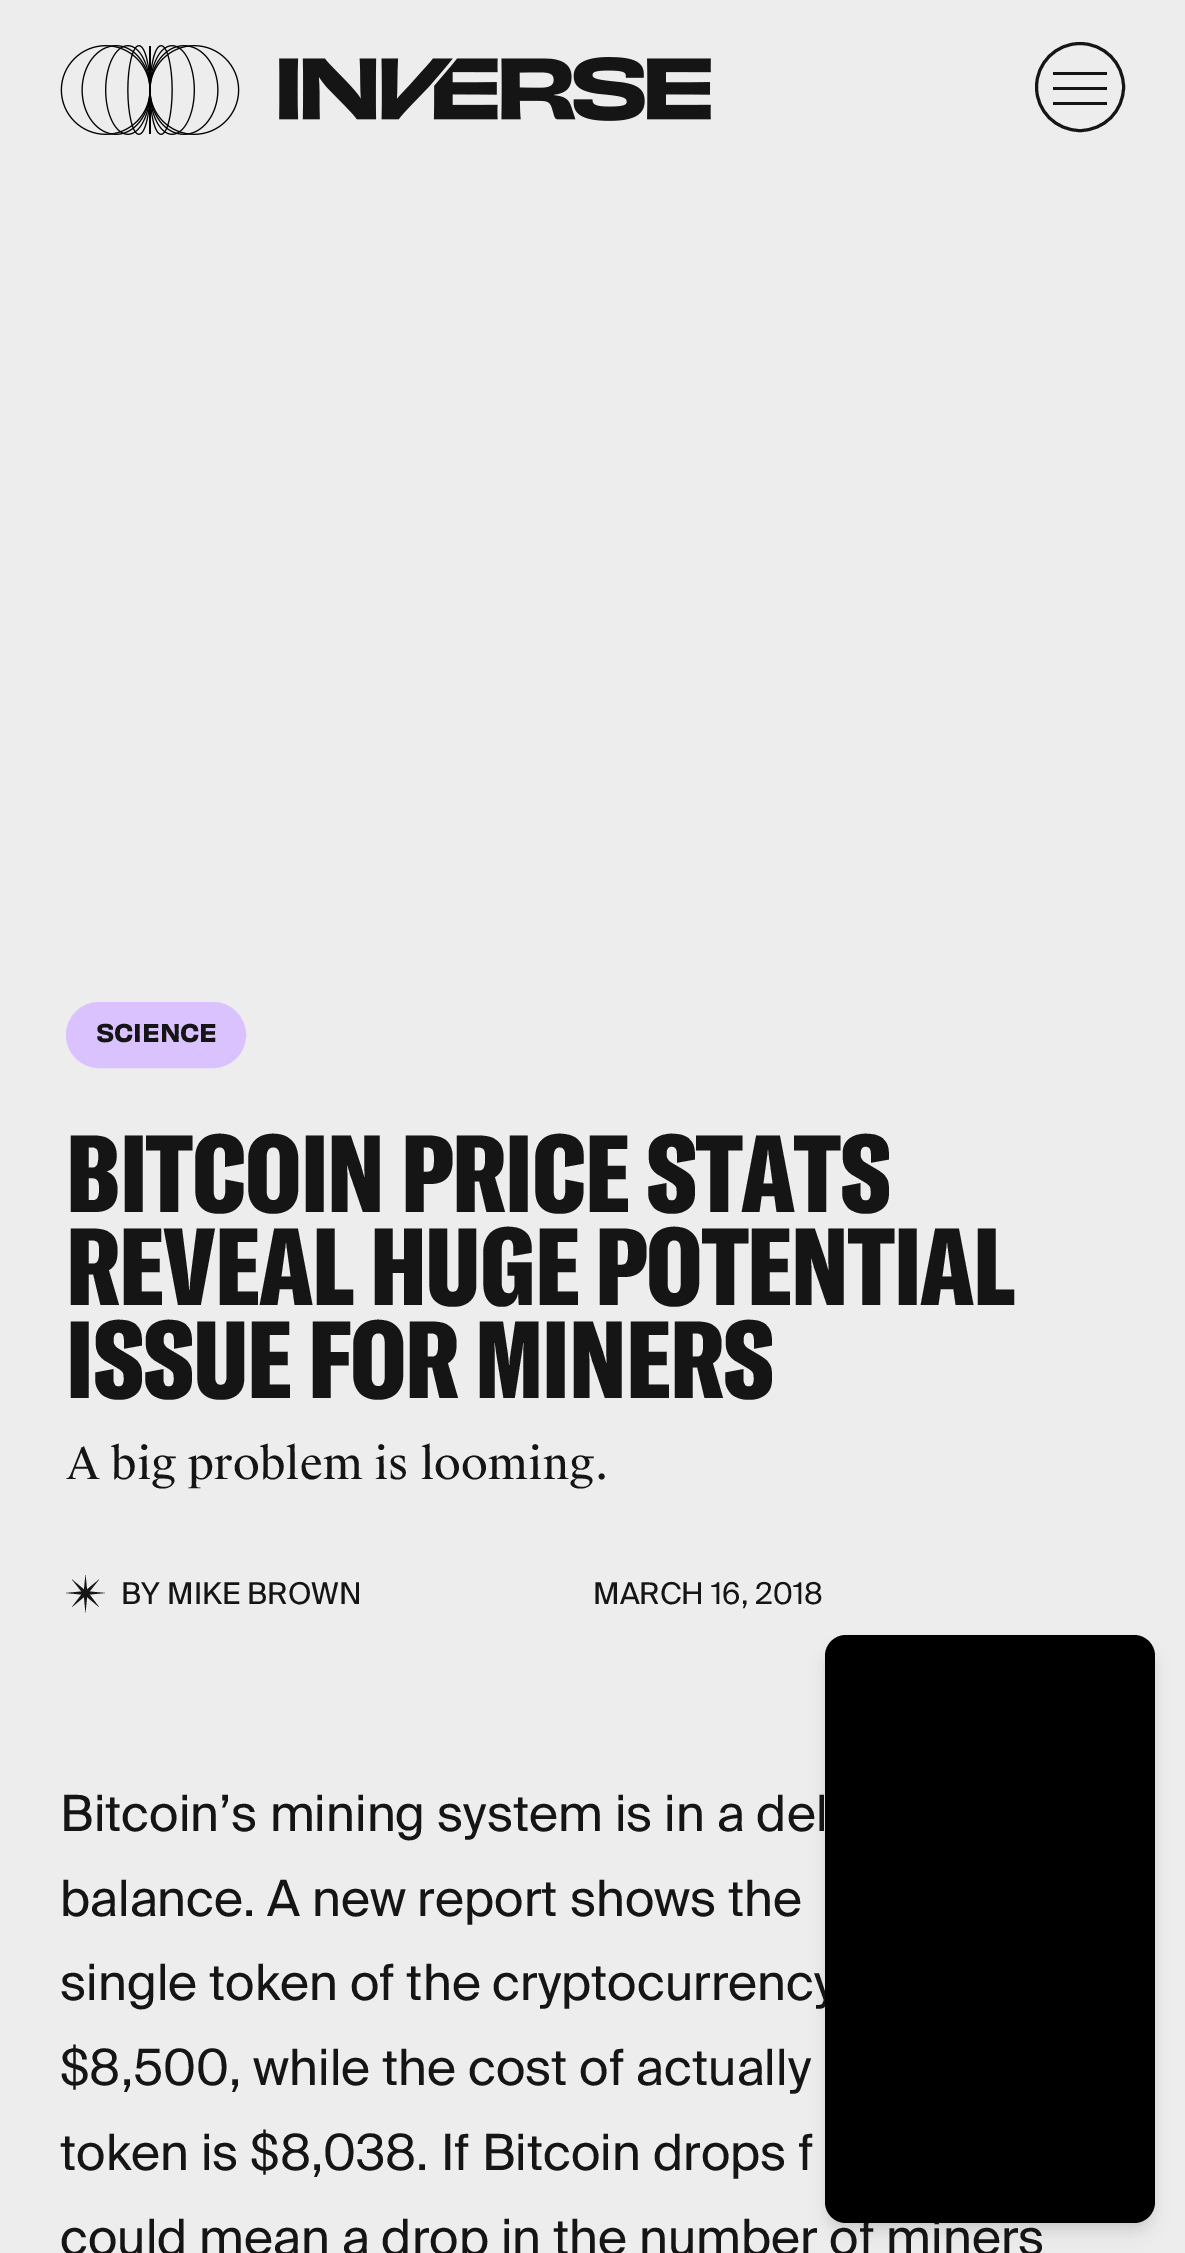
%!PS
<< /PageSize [1185 2253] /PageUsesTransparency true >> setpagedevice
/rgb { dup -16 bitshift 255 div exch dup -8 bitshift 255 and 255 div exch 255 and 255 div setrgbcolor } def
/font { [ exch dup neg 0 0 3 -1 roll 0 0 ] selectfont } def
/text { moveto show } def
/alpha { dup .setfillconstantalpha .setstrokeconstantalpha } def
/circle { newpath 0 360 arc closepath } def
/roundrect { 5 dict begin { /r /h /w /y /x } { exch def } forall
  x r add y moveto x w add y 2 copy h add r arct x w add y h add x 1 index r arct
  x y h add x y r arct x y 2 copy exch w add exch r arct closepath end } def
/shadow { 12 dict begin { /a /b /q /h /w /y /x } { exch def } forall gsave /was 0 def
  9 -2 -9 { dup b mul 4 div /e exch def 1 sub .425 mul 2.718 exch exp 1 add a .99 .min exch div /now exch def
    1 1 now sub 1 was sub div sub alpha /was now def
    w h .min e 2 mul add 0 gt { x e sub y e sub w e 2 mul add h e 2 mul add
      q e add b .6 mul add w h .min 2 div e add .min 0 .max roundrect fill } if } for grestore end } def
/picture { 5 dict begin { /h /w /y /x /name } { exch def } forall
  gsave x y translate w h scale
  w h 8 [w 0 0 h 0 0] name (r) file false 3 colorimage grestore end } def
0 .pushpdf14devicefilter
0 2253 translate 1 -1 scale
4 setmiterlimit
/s1 { /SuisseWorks-Regular 43.25 font 16#151515 rgb } def
/s2 { /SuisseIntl-Regular 30 font 16#151515 rgb } def
/s3 { /SuisseIntl-Regular 49.9 font 16#151515 rgb } def
16#EDEDED rgb
0 0 1185 2253 rectfill
(pic1.raw) 60 45 180 90 picture
(pic2.raw) 279 57 432 64 picture
16#151515 rgb
3 setlinewidth
1080 87 43.5 circle stroke
1053 72 54 3 rectfill
1053 102 54 3 rectfill
1053 87 54 3 rectfill
16#D9C2FE rgb
67.5 1003.5 177 63 31.5 roundrect gsave fill grestore
stroke
/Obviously-SemiBold 24 font
16#151515 rgb
96 1042 moveto -0.25 0 (SCIENCE) ashow
/GTAmerica-Black 108 font
66 1212 moveto -1.1 0 (BITCOIN PRICE STATS) ashow
66 1305 moveto -1.1 0 (REVEAL HUGE POTENTIAL) ashow
66 1398 moveto -1.1 0 (ISSUE FOR MINERS) ashow
s1
(A big problem is looming.) 66 1479 text
85.5 1575 moveto 87 1589.5 lineto 99 1579.5 lineto 89.5 1591.5 lineto 105 1593 lineto 89.5 1594.5 lineto 99 1607 lineto 87 1597 lineto 85.5 1612.5 lineto 84 1597 lineto 72 1607 lineto 81.5 1594.5 lineto 66 1593 lineto 81.5 1591.5 lineto 72 1579.5 lineto 84 1589.5 lineto closepath fill
s2
(BY MIKE BROWN) 121 1604 text
(MARCH 16, 2018) 593 1604 text
s3
(Bitcoin’s mining system is in a del) 60 1831 text
(balance. A new report shows the) 60 1916 text
(single token of the cryptocurrency) 60 2000 text
($8,500, while the cost of actually) 60 2085 text
(token is $8,038. If Bitcoin drops f) 60 2170 text
(could mean a drop in the number of miners) 60 2255 text
16#000000 rgb
831 1647 318 576 15 6 0.1 shadow
828 1650 324 582 18 9 0.1 shadow
825 1635 330 588 21 roundrect fill
.poppdf14devicefilter showpage
